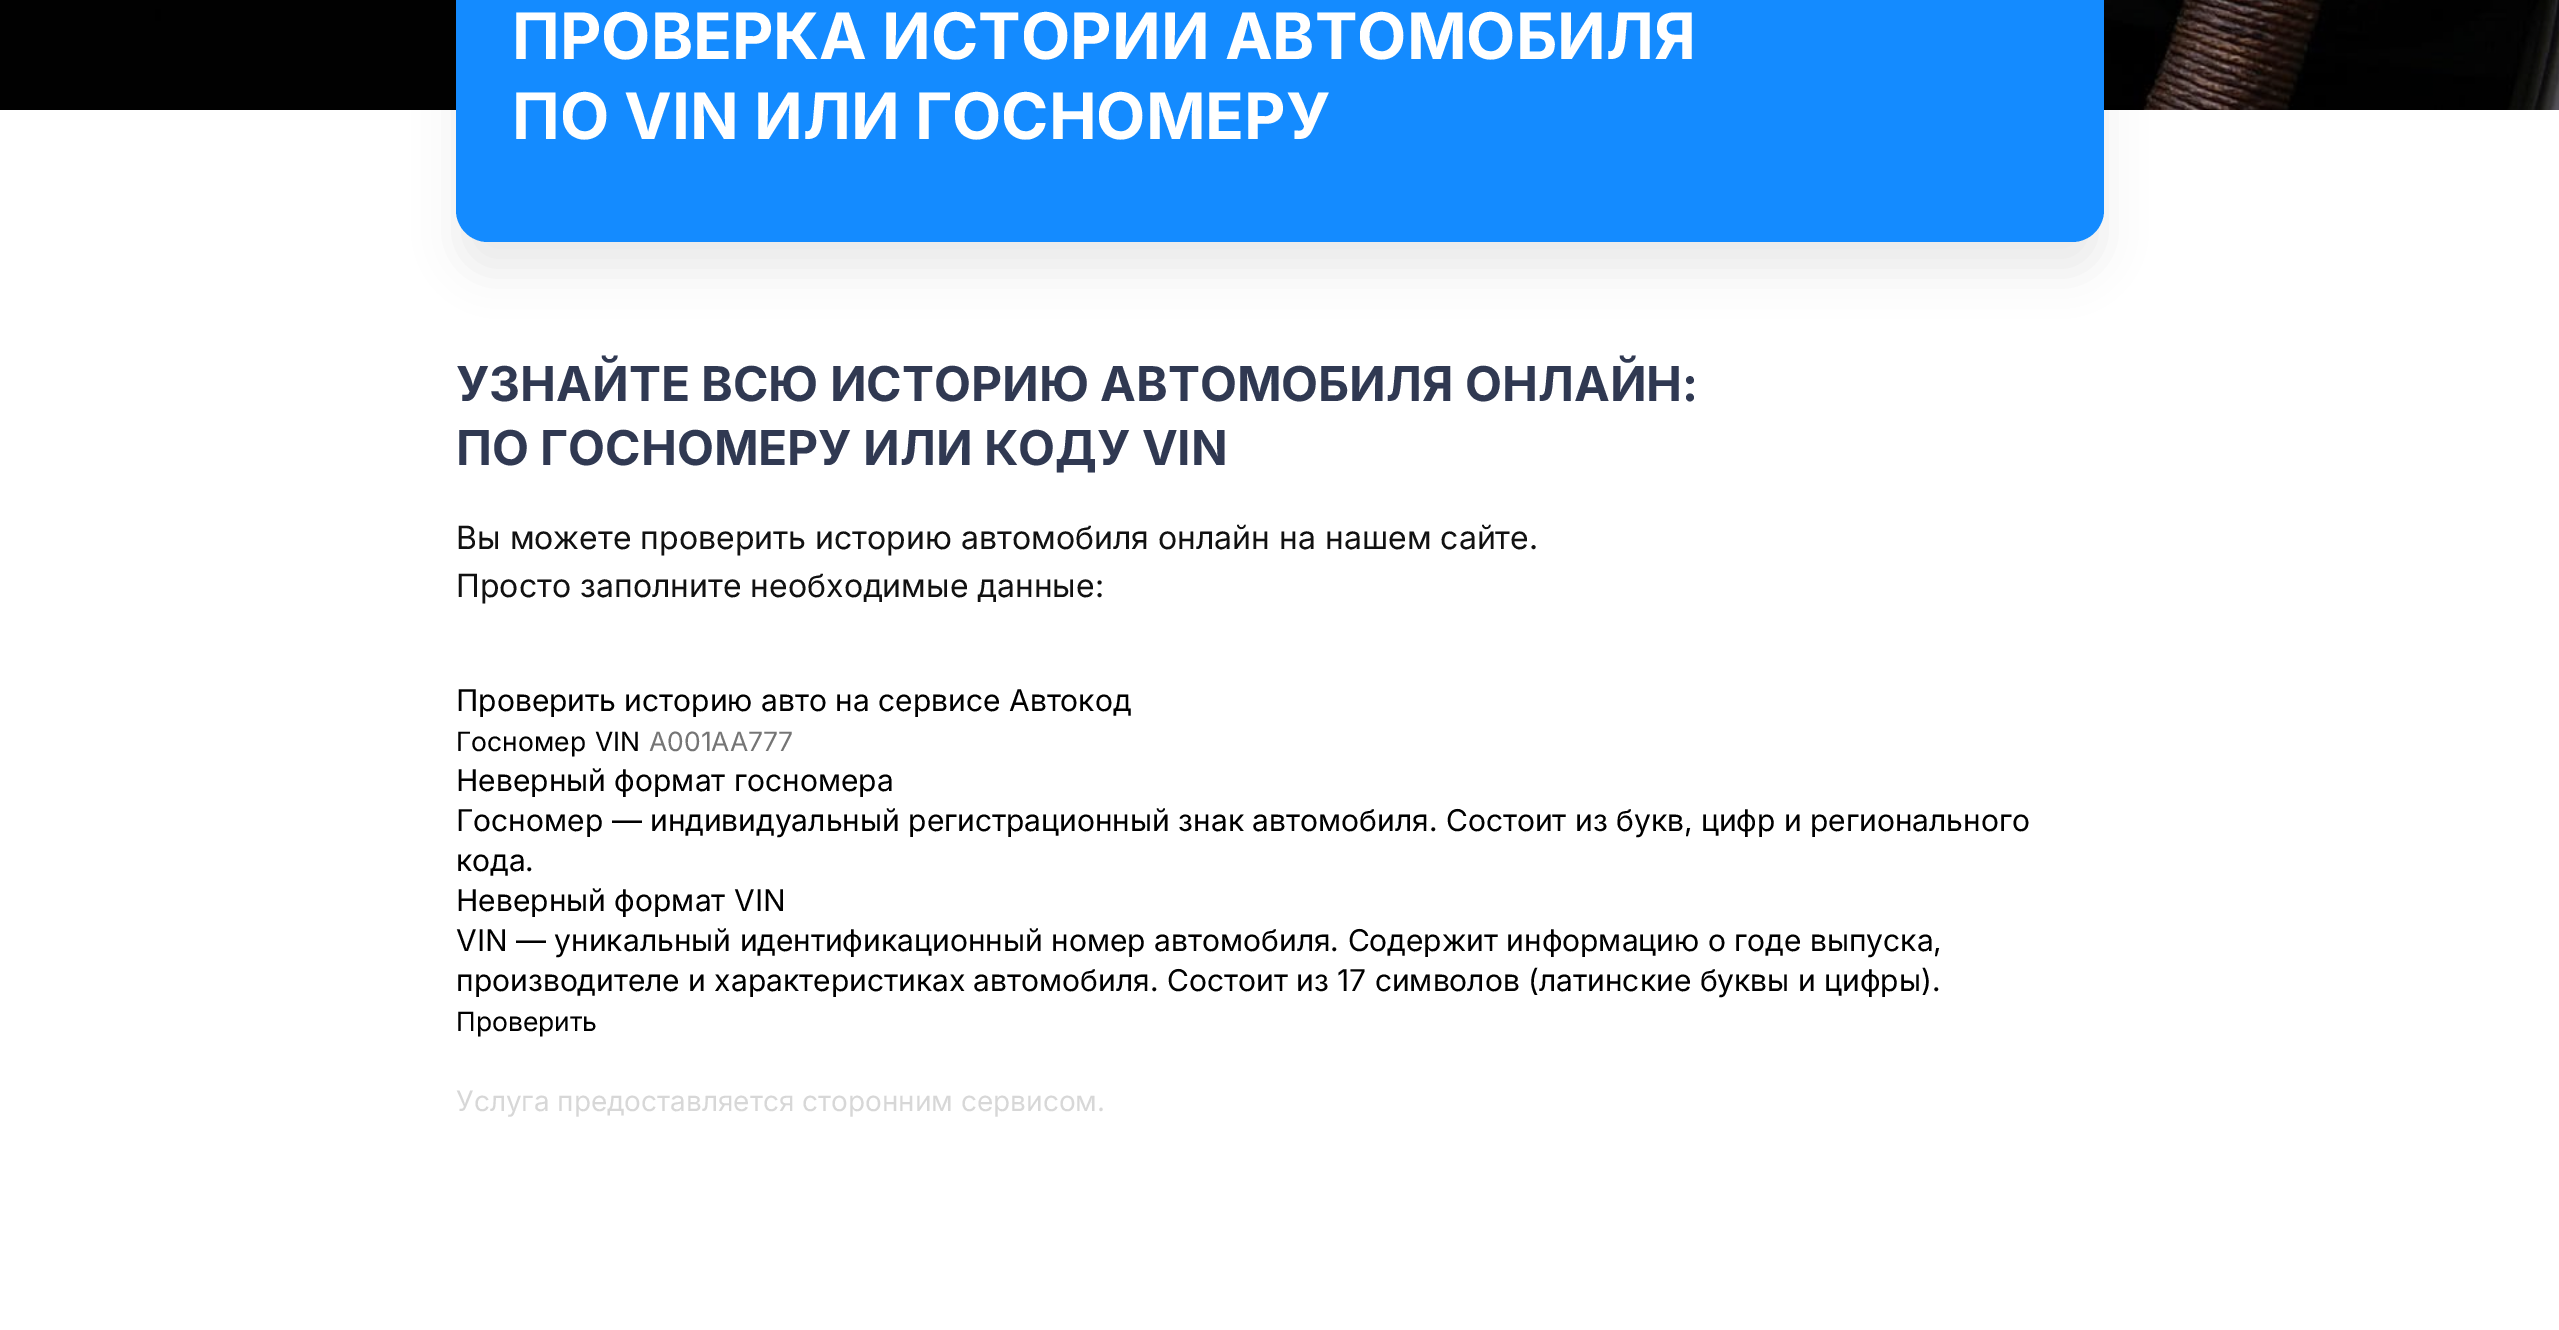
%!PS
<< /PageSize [2559 1330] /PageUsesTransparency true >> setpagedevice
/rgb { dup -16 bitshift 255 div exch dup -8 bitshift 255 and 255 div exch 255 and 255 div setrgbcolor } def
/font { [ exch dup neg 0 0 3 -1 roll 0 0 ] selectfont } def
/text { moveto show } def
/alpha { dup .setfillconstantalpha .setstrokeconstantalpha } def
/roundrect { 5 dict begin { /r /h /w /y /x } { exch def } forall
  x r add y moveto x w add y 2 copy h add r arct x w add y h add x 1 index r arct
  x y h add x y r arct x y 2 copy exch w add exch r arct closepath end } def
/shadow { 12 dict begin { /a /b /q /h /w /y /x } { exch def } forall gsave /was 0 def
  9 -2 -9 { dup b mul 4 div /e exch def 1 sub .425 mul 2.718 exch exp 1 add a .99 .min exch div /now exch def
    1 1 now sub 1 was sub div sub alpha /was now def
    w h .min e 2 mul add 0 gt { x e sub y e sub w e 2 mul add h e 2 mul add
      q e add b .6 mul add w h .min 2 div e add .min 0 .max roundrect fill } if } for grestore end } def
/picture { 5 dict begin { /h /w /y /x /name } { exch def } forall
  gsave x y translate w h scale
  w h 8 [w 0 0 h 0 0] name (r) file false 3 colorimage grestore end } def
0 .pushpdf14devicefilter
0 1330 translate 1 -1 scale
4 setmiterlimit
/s1 { /Inter-Bold 64 font 16#FFFFFF rgb } def
/s2 { /Inter-Bold 48 font 16#303952 rgb } def
/s3 { /Inter-Regular 32 font 16#111111 rgb } def
/s4 { /Inter-Regular 30 font 16#000000 rgb } def
/s5 { /Inter-Regular 26.5 font 16#757575 rgb } def
/s6 { /Inter-Regular 26.5 font 16#000000 rgb } def
/s7 { /Inter-Regular 28 font 16#D7D7D7 rgb } def
16#FFFFFF rgb
0 0 2559 1330 rectfill
(pic1.raw) 0 0 2559 110 picture
16#111111 rgb
456 -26 1648 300 32 20 0.07 shadow
16#148BFF rgb
456 -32 1648 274 32 roundrect fill
s1
(ПРОВЕРКА ИСТОРИИ АВТОМОБИЛЯ) 512 59 text
(ПО VIN ИЛИ ГОСНОМЕРУ) 512 139 text
s2
(УЗНАЙТЕ ВСЮ ИСТОРИЮ АВТОМОБИЛЯ ОНЛАЙН:) 456 401 text
(ПО ГОСНОМЕРУ ИЛИ КОДУ VIN) 456 465 text
s3
(Вы можете проверить историю автомобиля онлайн на нашем сайте.) 456 549 text
(Просто заполните необходимые данные:) 456 597 text
s4
(Проверить историю авто на сервисе Автокод) 456 711 text
s5
(А001АА777) 649 751 text
s4
(Неверный формат госномера) 456 791 text
(Госномер — индивидуальный регистрационный знак автомобиля. Состоит из букв, цифр и регионального) 456 831 text
(кода.) 456 871 text
(Неверный формат VIN) 456 911 text
(VIN — уникальный идентификационный номер автомобиля. Содержит информацию о годе выпуска,) 456 951 text
(производителе и характеристиках автомобиля. Состоит из 17 символов \(латинские буквы и цифры\).) 456 991 text
s6
(Госномер) 456 751 text
(VIN) 595 751 text
(Проверить) 456 1031 text
s7
(Услуга предоставляется сторонним сервисом.) 456 1111 text
.poppdf14devicefilter showpage
